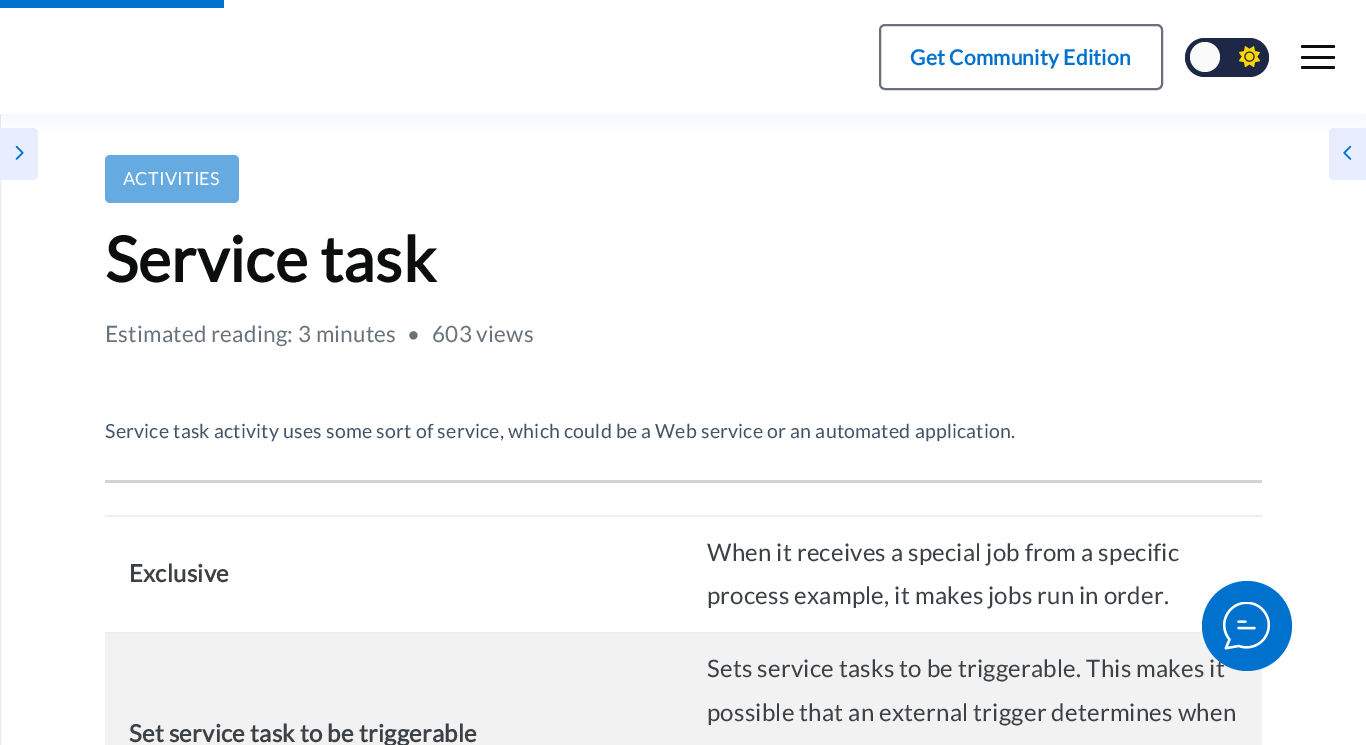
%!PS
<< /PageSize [1366 745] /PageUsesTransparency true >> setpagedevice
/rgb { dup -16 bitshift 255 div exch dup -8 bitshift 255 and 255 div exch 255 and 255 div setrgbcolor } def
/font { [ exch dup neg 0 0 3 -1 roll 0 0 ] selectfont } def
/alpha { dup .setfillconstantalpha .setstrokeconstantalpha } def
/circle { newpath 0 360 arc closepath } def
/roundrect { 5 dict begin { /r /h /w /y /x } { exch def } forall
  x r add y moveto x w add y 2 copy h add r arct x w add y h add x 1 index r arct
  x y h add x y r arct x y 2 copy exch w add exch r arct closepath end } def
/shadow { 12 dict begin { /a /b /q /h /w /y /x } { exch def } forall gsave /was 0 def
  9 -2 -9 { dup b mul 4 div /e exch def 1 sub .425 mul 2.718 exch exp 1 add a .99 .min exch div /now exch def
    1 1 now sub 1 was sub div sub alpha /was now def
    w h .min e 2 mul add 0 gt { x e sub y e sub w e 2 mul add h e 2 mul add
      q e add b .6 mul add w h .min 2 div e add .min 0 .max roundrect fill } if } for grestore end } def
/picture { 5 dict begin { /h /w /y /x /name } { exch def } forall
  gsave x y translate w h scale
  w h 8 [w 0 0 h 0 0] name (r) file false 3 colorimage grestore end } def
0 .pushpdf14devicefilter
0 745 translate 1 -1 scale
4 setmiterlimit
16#FFFFFF rgb
0 0 1366 745 rectfill
16#E6EDF0 rgb
0 114 1 631 rectfill
16#E8EEFF rgb
0 128 moveto 33 128 lineto 36 128 38 130 38 133 curveto 38 175 lineto 38 178 36 180 33 180 curveto 0 180 lineto closepath fill
1334 128 moveto 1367 128 lineto 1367 180 lineto 1334 180 lineto 1331 180 1329 178 1329 175 curveto 1329 133 lineto 1329 130 1331 128 1334 128 curveto closepath fill
16#0866FF rgb
0 6 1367 114 0 7.5 0.06 shadow
16#FFFFFF rgb
0 0 1366 114 rectfill
16#0072CE rgb
0 0 224 8 rectfill
16#6B707F rgb
2 setlinewidth
880 25 282 64 5 roundrect stroke
/Lato-Bold 21 font
16#0072CE rgb
910 65 moveto 0.22 0 (Get Community Edition) ashow
16#1D2746 rgb
1185 38 84 39 19.5 roundrect fill
16#FAFAFA rgb
1205 57 15 circle fill
(pic1.raw) 1239 46 21 22 picture
16#0C0D0E rgb
1301 45 34 3 1.5 roundrect fill
1301 56 34 3 1.5 roundrect fill
1301 66 34 3 1.5 roundrect fill
(pic2.raw) 15 145 9 15 picture
(pic3.raw) 1343 145 9 15 picture
16#66AAE2 rgb
105 155 134 48 5 roundrect fill
/Lato-Regular 18 font
16#FFFFFF rgb
123 185 moveto 0.22 0 (ACTIVITIES) ashow
/Lato-Bold 62.5 font
16#0C0D0E rgb
105 282 moveto 0.22 0 (Service task) ashow
/Lato-Regular 22.5 font
16#6A737C rgb
105 342 moveto 0.22 0 (Estimated reading: 3 minutes) ashow
407 342 moveto 0.22 0 (•) ashow
432 342 moveto 0.22 0 (603 views) ashow
/Lato-Regular 19.5 font
16#425466 rgb
105 438 moveto 0.22 0 (Service task activity uses some sort of service, which could be a Web service or an automated application.) ashow
16#D0D4D9 rgb
105 480 1157 3 rectfill
/Lato-Bold 24 font
16#3C4146 rgb
129 582 moveto 0.22 0 (Exclusive) ashow
16#EEEEEE rgb
105 515 1157 2 rectfill
/Lato-Regular 24 font
16#3C4146 rgb
707 561 moveto 0.22 0 (When it receives a special job from a specific) ashow
707 604 moveto 0.22 0 (process example, it makes jobs run in order.) ashow
16#F2F2F2 rgb
105 634 1157 111 rectfill
16#EEEEEE rgb
105 632 1098 2 rectfill
16#3C4146 rgb
707 677 moveto 0.22 0 (Sets service tasks to be triggerable. This makes it) ashow
707 721 moveto 0.22 0 (possible that an external trigger determines when) ashow
/Lato-Bold 24 font
129 742 moveto 0.22 0 (Set service task to be triggerable) ashow
16#0072CE rgb
1247 626 45 circle fill
(pic4.raw) 1223 602 48 48 picture
.poppdf14devicefilter showpage
